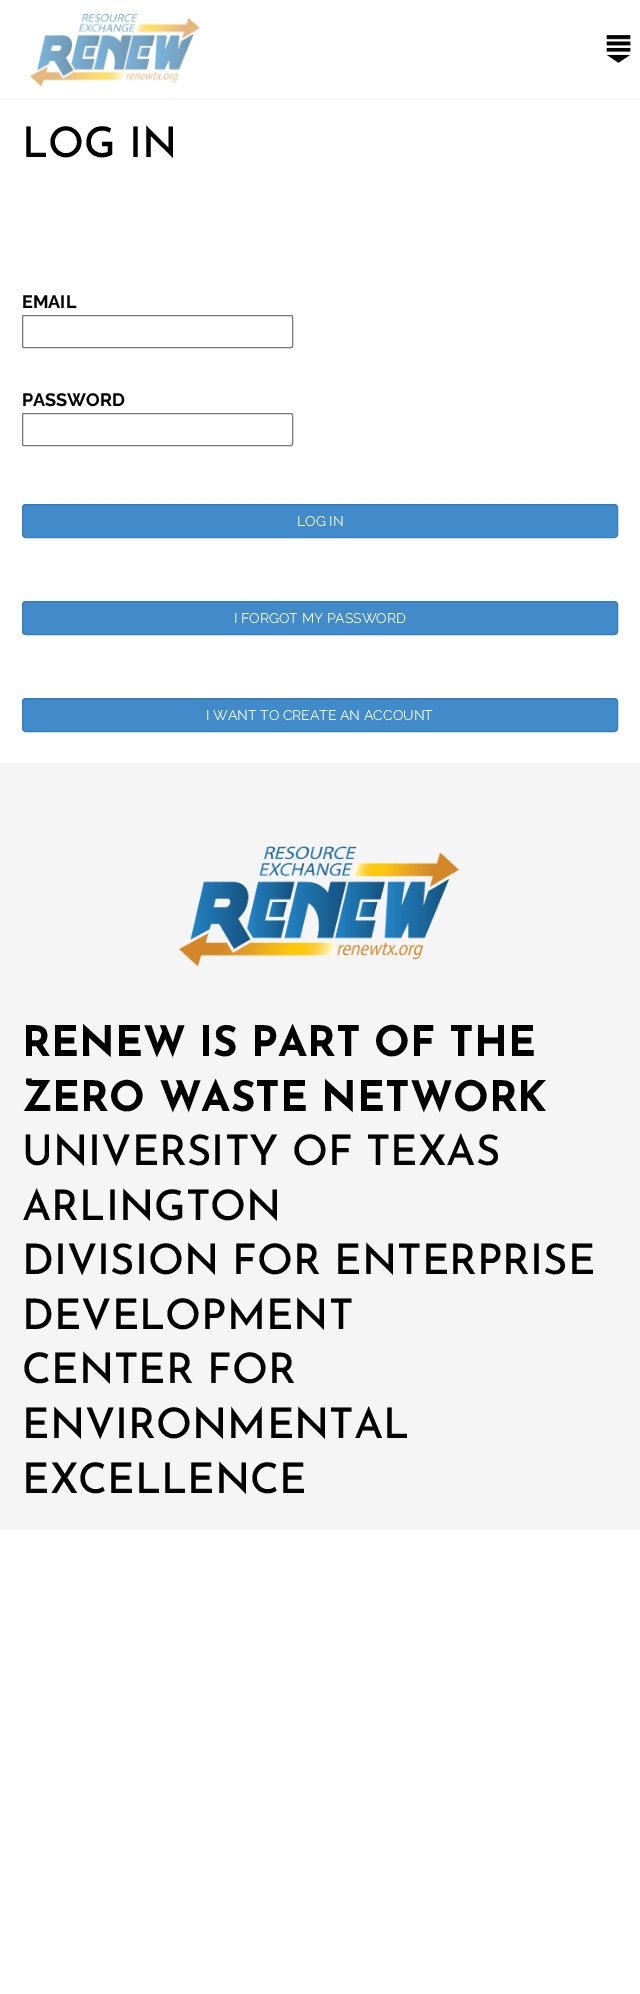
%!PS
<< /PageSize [640 1994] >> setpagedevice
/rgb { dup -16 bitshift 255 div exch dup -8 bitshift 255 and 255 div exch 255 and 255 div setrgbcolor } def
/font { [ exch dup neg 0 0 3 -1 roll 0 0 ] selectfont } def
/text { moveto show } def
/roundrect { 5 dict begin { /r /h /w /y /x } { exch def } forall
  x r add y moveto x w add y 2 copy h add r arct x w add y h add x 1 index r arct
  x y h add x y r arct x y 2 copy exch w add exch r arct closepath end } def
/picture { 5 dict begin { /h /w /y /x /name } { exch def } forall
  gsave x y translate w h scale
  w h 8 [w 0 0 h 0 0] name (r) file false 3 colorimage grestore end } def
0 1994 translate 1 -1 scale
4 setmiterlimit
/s1 { /JosefinSans-Medium 42 font 16#000000 rgb } def
/s2 { /Raleway-Bold 18 font 16#000000 rgb } def
/s3 { /Raleway-Regular 14 font 16#FFFFFF rgb } def
/s4 { /JosefinSans-Bold 42 font 16#000000 rgb } def
16#FFFFFF rgb
0 0 640 1994 rectfill
16#F8F8F8 rgb
0 98 640 2 rectfill
(pic1.raw) 30 13 170 74 picture
(pic2.raw) 606 35 25 28 picture
s1
(LOG IN) 22 157 text
s2
(EMAIL) 22 308 text
16#767676 rgb
22.5 315.5 270 32 1.5 roundrect stroke
s2
(PASSWORD) 22 406 text
16#767676 rgb
22.5 413.5 270 32 1.5 roundrect stroke
16#428BCA rgb
22 504 596 34 4 roundrect fill
16#3D81BB rgb
26 506 moveto 614 506 lineto 616 506 617 507 617 509 curveto 617 508 lineto 617 506 616 505 614 505 curveto 26 505 lineto 24 505 23 506 23 508 curveto 23 509 lineto 23 507 24 506 26 506 curveto closepath fill
16#357EBD rgb
22.5 504.5 595 33 3.5 roundrect stroke
s3
(LOG IN) 297 526 text
16#428BCA rgb
22 601 596 34 4 roundrect fill
16#3D81BB rgb
26 603 moveto 614 603 lineto 616 603 617 604 617 606 curveto 617 605 lineto 617 603 616 602 614 602 curveto 26 602 lineto 24 602 23 603 23 605 curveto 23 606 lineto 23 604 24 603 26 603 curveto closepath fill
16#357EBD rgb
22.5 601.5 595 33 3.5 roundrect stroke
s3
(I FORGOT MY PASSWORD) 234 623 text
16#428BCA rgb
22 698 596 34 4 roundrect fill
16#3D81BB rgb
26 700 moveto 614 700 lineto 616 700 617 701 617 703 curveto 617 702 lineto 617 700 616 699 614 699 curveto 26 699 lineto 24 699 23 700 23 702 curveto 23 703 lineto 23 701 24 700 26 700 curveto closepath fill
16#357EBD rgb
22.5 698.5 595 33 3.5 roundrect stroke
s3
(I WANT TO CREATE AN ACCOUNT) 206 720 text
16#F5F5F5 rgb
0 763 640 767 rectfill
(pic3.raw) 179 846 281 121 picture
s4
(RENEW IS PART OF THE) 22 1056 text
(ZERO WASTE NETWORK) 22 1111 text
s1
(UNIVERSITY OF TEXAS) 22 1165 text
(ARLINGTON) 22 1220 text
(DIVISION FOR ENTERPRISE) 22 1274 text
(DEVELOPMENT) 22 1329 text
(CENTER FOR) 22 1383 text
(ENVIRONMENTAL) 22 1438 text
(EXCELLENCE) 22 1493 text
showpage
